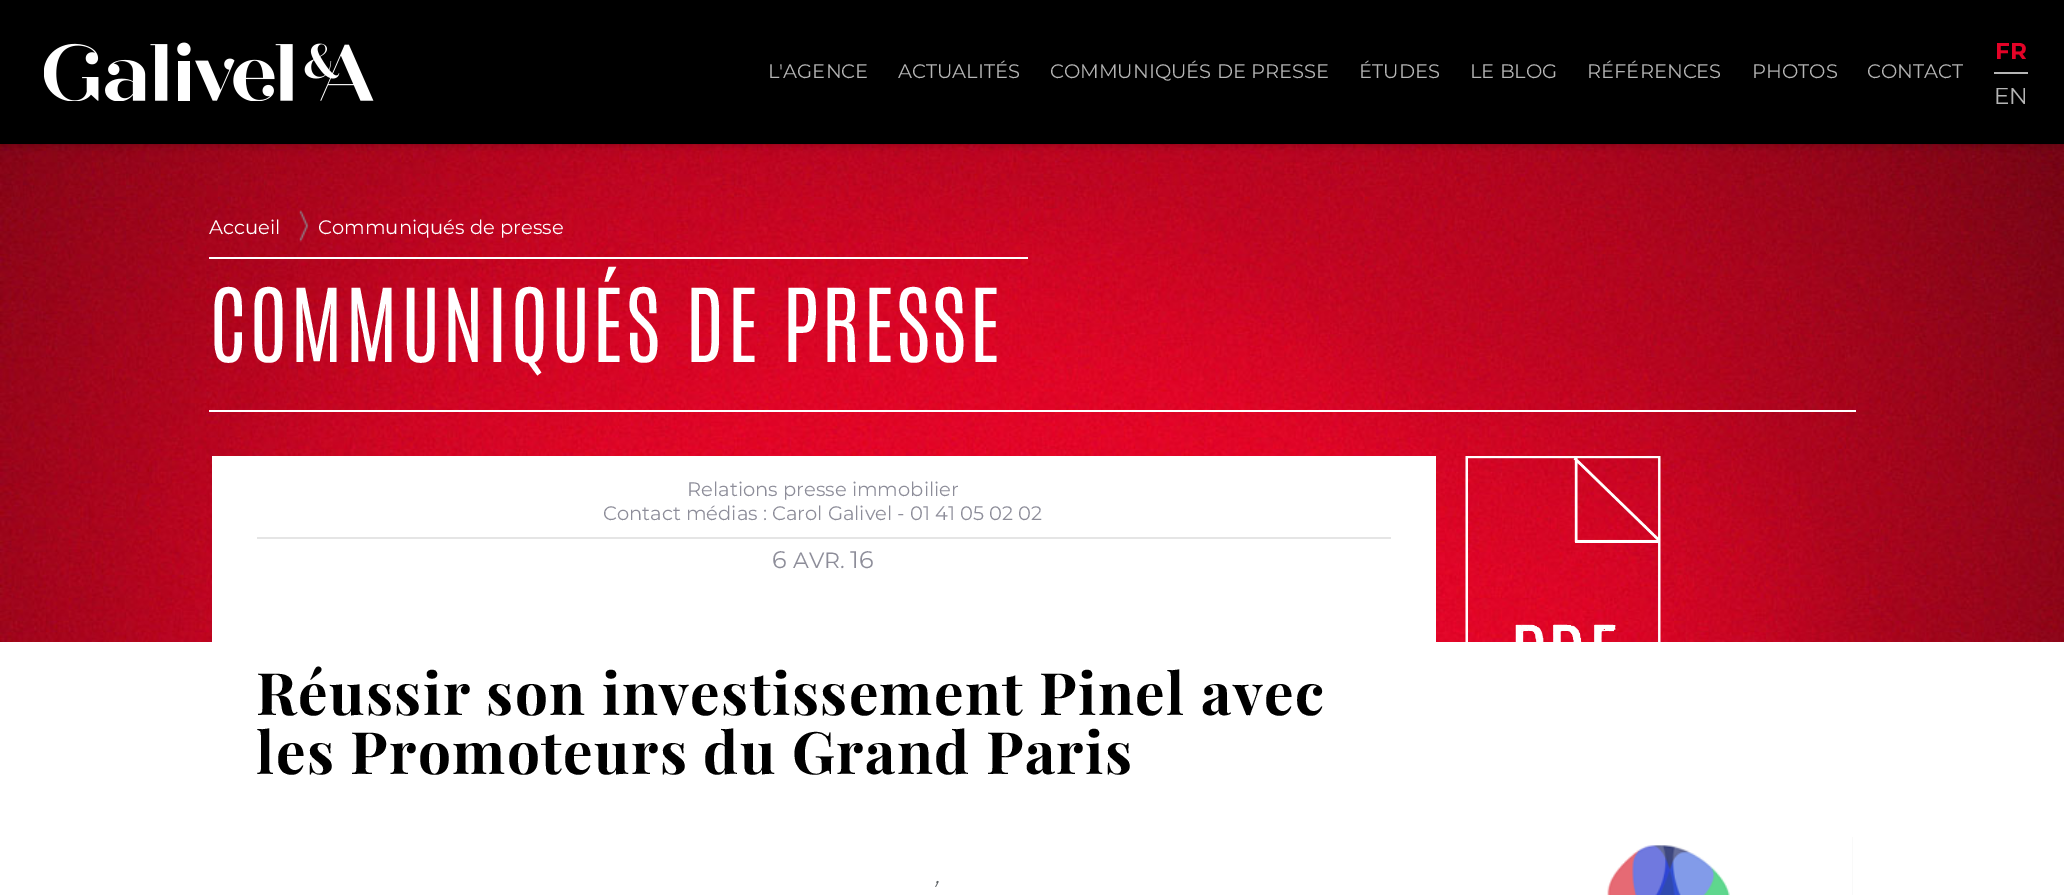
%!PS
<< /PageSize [2064 895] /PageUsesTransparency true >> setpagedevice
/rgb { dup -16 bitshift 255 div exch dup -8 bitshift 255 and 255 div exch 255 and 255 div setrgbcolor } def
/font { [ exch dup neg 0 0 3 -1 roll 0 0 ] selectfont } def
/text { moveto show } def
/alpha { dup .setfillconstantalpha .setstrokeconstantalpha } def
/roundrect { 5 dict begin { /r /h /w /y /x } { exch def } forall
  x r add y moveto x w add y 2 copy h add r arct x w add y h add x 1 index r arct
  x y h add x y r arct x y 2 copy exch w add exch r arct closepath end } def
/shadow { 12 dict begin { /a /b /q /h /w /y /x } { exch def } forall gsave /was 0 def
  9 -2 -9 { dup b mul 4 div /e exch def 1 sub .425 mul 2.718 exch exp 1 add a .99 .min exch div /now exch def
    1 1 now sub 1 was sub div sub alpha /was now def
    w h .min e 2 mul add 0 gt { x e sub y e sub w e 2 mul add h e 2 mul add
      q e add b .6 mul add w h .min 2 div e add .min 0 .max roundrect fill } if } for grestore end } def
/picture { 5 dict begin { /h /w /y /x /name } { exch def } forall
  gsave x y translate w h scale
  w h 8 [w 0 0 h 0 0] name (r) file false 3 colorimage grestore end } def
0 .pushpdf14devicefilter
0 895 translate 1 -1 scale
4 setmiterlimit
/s1 { /Montserrat-Regular 19.5 font 16#B5B5B5 rgb } def
/s2 { /Montserrat-Bold 23 font 16#E40327 rgb } def
/s3 { /Montserrat-Regular 23 font 16#B5B5B5 rgb } def
/s4 { /Montserrat-Regular 19.5 font 16#FFFFFF rgb } def
/s5 { /Montserrat-Regular 19.5 font 16#8D8D99 rgb } def
/s6 { /Montserrat-Regular 24 font 16#8D8D99 rgb } def
/s7 { /Montserrat-Regular 22 font 16#8D8D99 rgb } def
/s8 { /Montserrat-LightItalic 27 font 16#5F6366 rgb } def
16#FFFFFF rgb
0 0 2064 895 rectfill
(pic2.raw) 0 144 2064 498 picture
16#000000 rgb
0 0 2064 144 0 5 0.3 shadow
0 0 2064 144 rectfill
(pic1.raw) 44 42 330 59 picture
s1
(L'AGENCE) 768 78 text
(ACTUALITÉS) 898 78 text
(COMMUNIQUÉS DE PRESSE) 1050 78 text
(ÉTUDES) 1359 78 text
(LE BLOG) 1470 78 text
(RÉFÉRENCES) 1587 78 text
(PHOTOS) 1752 78 text
(CONTACT) 1867 78 text
1994 72 34 2 rectfill
s2
(FR) 1995 59 text
s3
(EN) 1994 104 text
16#FFFFFF rgb
209 257 819 2 rectfill
s4
(Accueil) 209 234 text
(pic3.raw) 299 210 10 32 picture
(Communiqués de presse) 318 234 text
209 410 1647 2 rectfill
/Antonio-Light 86.5 font
209 362 moveto 2.2 0 (COMMUNIQUÉS DE PRESSE) ashow
212 456 1224 186 rectfill
s5
(Relations presse immobilier) 687 496 text
(Contact médias : Carol Galivel - 01 41 05 02 02) 603 520 text
16#E5E5E5 rgb
257 537 1134 2 rectfill
s6
(6) 772 568 text
s7
(AVR.) 793 568 text
s6
(16) 850 568 text
/PlayfairDisplay-Bold 58.5 font
16#000000 rgb
256 715 moveto 1.45 0 (Réussir son investissement Pinel avec) ashow
256 774 moveto 1.45 0 (les Promoteurs du Grand Paris) ashow
s8
(’) 930 901 text
(pic4.raw) 1465 456 196 186 picture
16#F9F9F9 rgb
1852 837 1 58 rectfill
(pic5.raw) 1466 837 386 58 picture
.poppdf14devicefilter showpage
